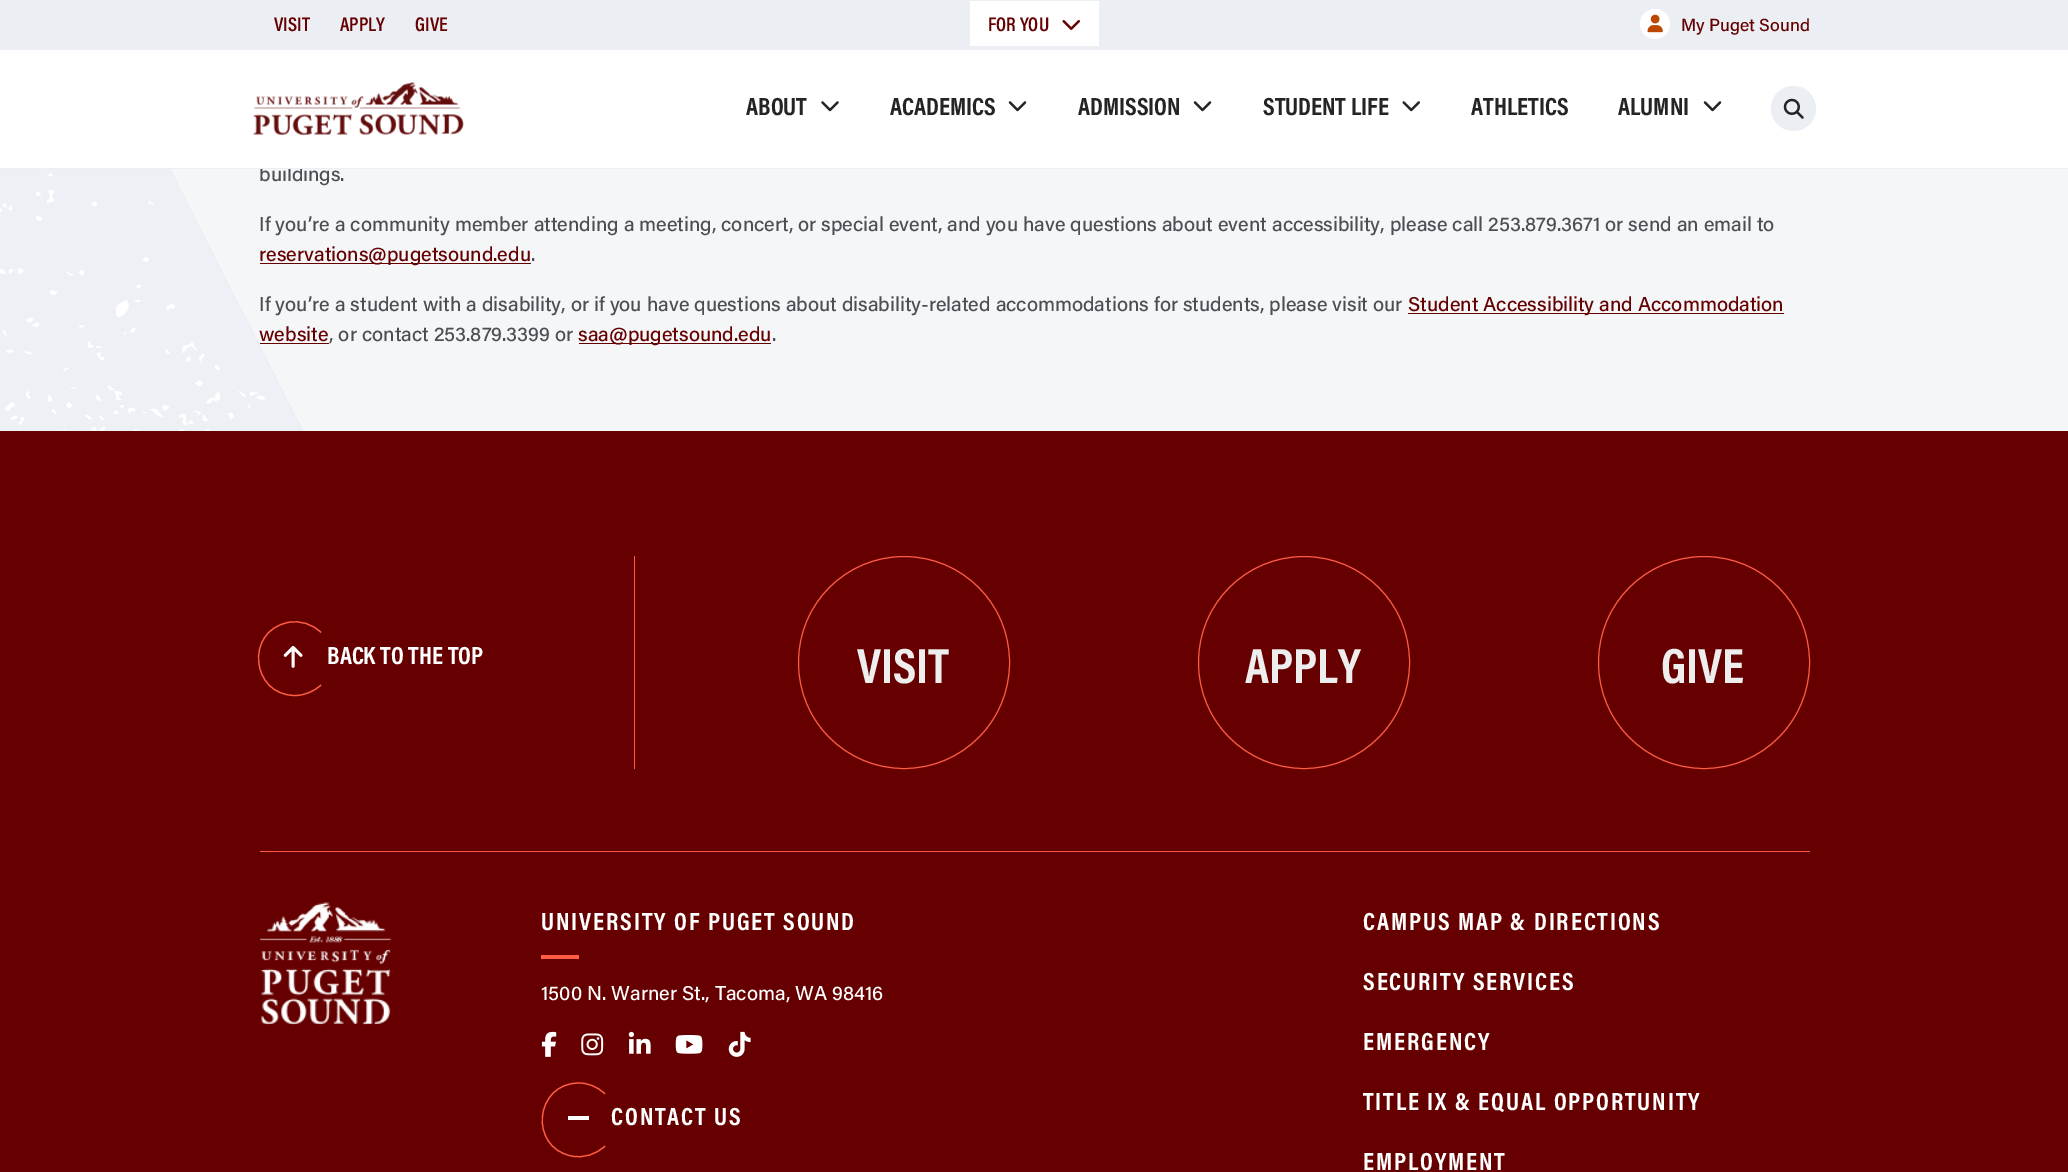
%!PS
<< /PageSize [2068 1172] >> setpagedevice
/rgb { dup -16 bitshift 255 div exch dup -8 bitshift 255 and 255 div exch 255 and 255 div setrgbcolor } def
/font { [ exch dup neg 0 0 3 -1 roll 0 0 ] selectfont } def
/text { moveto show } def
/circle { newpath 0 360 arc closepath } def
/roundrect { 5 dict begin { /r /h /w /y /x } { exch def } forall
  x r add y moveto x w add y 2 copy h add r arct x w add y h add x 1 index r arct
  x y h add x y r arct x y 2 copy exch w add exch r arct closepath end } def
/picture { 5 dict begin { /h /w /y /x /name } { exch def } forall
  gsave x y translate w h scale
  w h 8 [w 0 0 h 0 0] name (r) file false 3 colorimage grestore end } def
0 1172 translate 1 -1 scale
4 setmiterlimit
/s1 { /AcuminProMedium-Medium 20 font 16#4A4F54 rgb } def
/s2 { /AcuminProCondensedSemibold-SemiBold 20 font 16#660000 rgb } def
/s3 { /AcuminProMedium-Medium 17.5 font 16#660000 rgb } def
/s4 { /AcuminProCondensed-Bold 25 font 16#252323 rgb } def
/s5 { /AcuminProMedium-Medium 20 font 16#660000 rgb } def
/s6 { /AcuminProCondensed-Bold 25 font 16#FFFFFF rgb } def
/s7 { /AcuminProCondensed-Bold 50 font 16#EEEEEE rgb } def
/s8 { /AcuminProMedium-Medium 20 font 16#FFFFFF rgb } def
16#FFFFFF rgb
0 0 2068 1172 rectfill
(pic1.raw) 0 169 2068 262 picture
s1
(buildings.) 259 181 text
16#FFFFFF rgb
260 166 47 2 rectfill
16#EBEEF2 rgb
0 168 2068 1 rectfill
0 0 2068 50 rectfill
s2
(VISIT) 274 31 text
(APPLY) 340 31 text
(GIVE) 415 31 text
16#FFFFFF rgb
970 1 129 45 rectfill
s2
(FOR YOU) 988 31 text
(pic2.raw) 1062 20 18 10 picture
16#FFFFFF rgb
1655 24 15 circle fill
(pic3.raw) 1647 14 16 19 picture
s3
(My Puget Sound) 1681 31 text
(pic4.raw) 253 82 211 54 picture
s4
(ABOUT) 746 115 text
(pic5.raw) 821 101 18 11 picture
(ACADEMICS) 890 115 text
(pic6.raw) 1008 101 19 11 picture
(ADMISSION) 1078 115 text
(pic6.raw) 1193 101 19 11 picture
(STUDENT LIFE) 1263 115 text
(pic7.raw) 1402 101 18 11 picture
(ATHLETICS) 1471 115 text
(ALUMNI) 1618 115 text
(pic6.raw) 1703 101 19 11 picture
16#EBEEF2 rgb
1793.5 108.5 22.5 circle fill
(pic8.raw) 1783 98 21 21 picture
s1
(If you’re a community member attending a meeting, concert, or special event, and you have questions about event accessibility, please call 253.879.3671 or send an email to) 259 231 text
16#660000 rgb
260 263 271 1 rectfill
(reservations@pugetsound.edu) 259 261 text
s1
(.) 531 261 text
(If you’re a student with a disability, or if you have questions about disability-related accommodations for students, please visit our) 259 311 text
16#660000 rgb
1408 313 376 1 rectfill
(Student Accessibility and Accommodation) 1408 311 text
(website) 259 341 text
260 343 69 1 rectfill
s1
(, or contact 253.879.3399 or) 329 341 text
16#660000 rgb
579 343 192 1 rectfill
(saa@pugetsound.edu) 578 341 text
s1
(.) 772 341 text
16#660000 rgb
0 431 2068 741 rectfill
16#FF5D43 rgb
260 851 1550 1 rectfill
634 556 1 213 rectfill
(pic9.raw) 283 646 20 22 picture
1.2 setlinewidth
321 685 moveto 314 691.5 304.5 695.5 295 695.5 curveto 251 695.5 244.5 631 288 622.5 curveto 300 620 312.5 624 321 632.5 curveto stroke
s6
(BACK TO THE TOP) 327 664 text
16#FF5D43 rgb
1 setlinewidth
798.5 556.5 211 212 105.5 roundrect stroke
s7
(VISIT) 857 683 text
16#FF5D43 rgb
1198.5 556.5 211 212 105.5 roundrect stroke
s7
(APPLY) 1245 683 text
16#FF5D43 rgb
1598.5 556.5 211 212 105.5 roundrect stroke
s7
(GIVE) 1661 683 text
(pic10.raw) 260 902 132 123 picture
/AcuminProCondensed-Bold 25 font
16#FFFFFF rgb
541 930 moveto 1.9 0 (UNIVERSITY OF PUGET SOUND) ashow
16#FF5D43 rgb
541 955 38 4 rectfill
s8
(1500 N. Warner St., Tacoma, WA 98416) 541 1000 text
(pic11.raw) 541 1031 16 26 picture
(pic12.raw) 581 1033 23 23 picture
(pic13.raw) 628 1031 23 23 picture
(pic14.raw) 675 1035 28 19 picture
(pic15.raw) 728 1031 23 26 picture
568 1116 21 4 rectfill
16#FF5D43 rgb
1.2 setlinewidth
605 1146 moveto 596 1154.5 583.5 1158.5 571.5 1156 curveto 528.5 1147.5 534.5 1083 579 1083 curveto 588.5 1083 598 1087 605 1094 curveto stroke
/AcuminProCondensed-Bold 25 font
16#FFFFFF rgb
611 1125 moveto 1.9 0 (CONTACT US) ashow
1363 930 moveto 1.9 0 (CAMPUS MAP & DIRECTIONS) ashow
1363 990 moveto 1.9 0 (SECURITY SERVICES) ashow
1363 1050 moveto 1.9 0 (EMERGENCY) ashow
1363 1110 moveto 1.9 0 (TITLE IX & EQUAL OPPORTUNITY) ashow
1363 1170 moveto 1.9 0 (EMPLOYMENT) ashow
showpage
